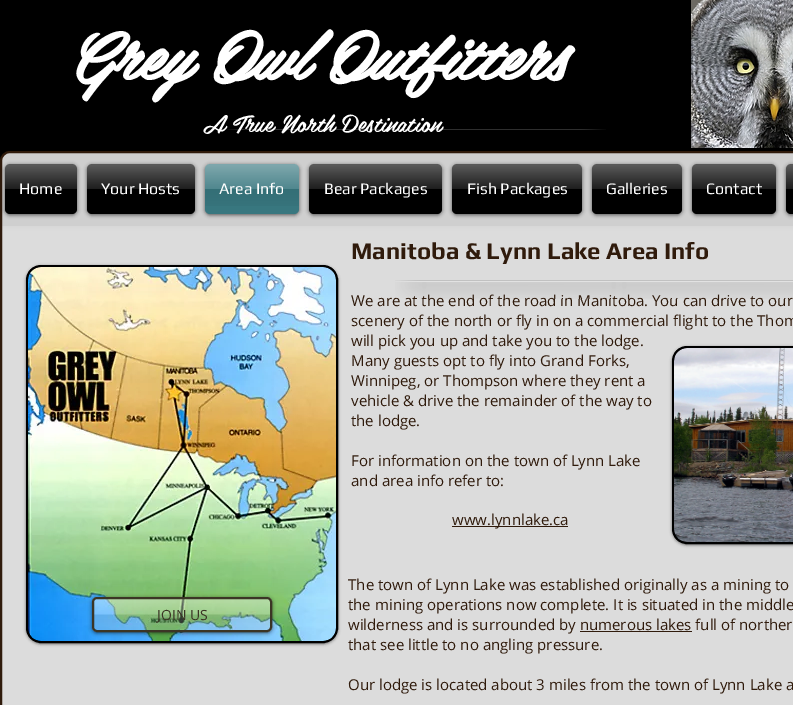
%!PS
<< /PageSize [793 705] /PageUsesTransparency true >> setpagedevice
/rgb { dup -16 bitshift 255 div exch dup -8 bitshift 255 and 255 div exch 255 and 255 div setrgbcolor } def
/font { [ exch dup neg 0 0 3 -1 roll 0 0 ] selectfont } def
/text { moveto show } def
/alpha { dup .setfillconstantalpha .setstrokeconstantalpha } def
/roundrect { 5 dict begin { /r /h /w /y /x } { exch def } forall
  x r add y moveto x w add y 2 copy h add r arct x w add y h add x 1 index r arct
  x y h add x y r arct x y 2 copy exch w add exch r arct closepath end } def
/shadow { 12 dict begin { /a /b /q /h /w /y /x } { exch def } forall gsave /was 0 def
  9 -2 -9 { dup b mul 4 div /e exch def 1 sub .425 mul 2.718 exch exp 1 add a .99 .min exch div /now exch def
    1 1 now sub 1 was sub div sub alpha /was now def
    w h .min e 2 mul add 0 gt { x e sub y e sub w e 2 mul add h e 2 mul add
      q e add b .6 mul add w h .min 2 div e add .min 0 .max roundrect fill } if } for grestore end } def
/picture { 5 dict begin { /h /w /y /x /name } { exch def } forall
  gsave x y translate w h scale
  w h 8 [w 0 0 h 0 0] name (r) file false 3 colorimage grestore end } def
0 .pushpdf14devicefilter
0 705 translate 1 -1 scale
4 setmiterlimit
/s1 { /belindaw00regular-BoldItalic 66 font 16#FFFFFF rgb } def
/s2 { /belindaw00regular-Regular 24 font 16#FFFFFF rgb } def
/s3 { /Play-Regular 16 font 16#FFFFFF rgb } def
/s4 { /Play-Bold 24 font 16#301B0C rgb } def
/s5 { /OpenSans-Regular 15 font 16#301B0C rgb } def
/s6 { /OpenSans-Regular 14 font 16#3B3525 rgb } def
16#444444 rgb
0 0 793 705 rectfill
16#000000 rgb
0 0 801 226 0 2.5 0.7 shadow
0 0 793 226 rectfill
s1
(Grey Owl Outfitters) 67 80 text
(pic1.raw) 691 0 102 148 picture
(pic2.raw) 225 129 25 1 picture
16#2E2E2E rgb
250 129 331 1 rectfill
s2
(A True North Destination) 203 132 text
(pic3.raw) 581 129 25 1 picture
0.81 alpha
1 152 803 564 9 roundrect fill
1 alpha
16#301B0C rgb
2 setlinewidth
1 152 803 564 9 roundrect stroke
16#000000 rgb
5 165 72 50 5 2 0.6 shadow
5 164 72 50 5 roundrect fill
(pic4.raw) 5 164 72 25 picture
s3
(Home) 19 194 text
16#000000 rgb
87 165 108 50 5 2 0.6 shadow
87 164 108 50 5 roundrect fill
(pic5.raw) 87 164 108 25 picture
s3
(Your Hosts) 101 194 text
16#000000 rgb
205 165 94 50 5 2 0.6 shadow
16#38777F rgb
205 164 94 50 5 roundrect fill
(pic6.raw) 205 164 94 42 picture
s3
(Area Info) 219 194 text
16#000000 rgb
309 165 133 50 5 2 0.6 shadow
309 164 133 50 5 roundrect fill
(pic7.raw) 309 164 133 25 picture
s3
(Bear Packages) 324 194 text
16#000000 rgb
452 165 130 50 5 2 0.6 shadow
452 164 130 50 5 roundrect fill
(pic8.raw) 452 164 130 25 picture
s3
(Fish Packages) 467 194 text
16#000000 rgb
592 165 90 50 5 2 0.6 shadow
592 164 90 50 5 roundrect fill
(pic9.raw) 592 164 90 25 picture
s3
(Galleries) 606 194 text
16#000000 rgb
692 165 84 50 5 2 0.6 shadow
692 164 84 50 5 roundrect fill
(pic10.raw) 692 164 84 25 picture
s3
(Contact) 706 194 text
16#000000 rgb
786 165 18 50 5 2 0.6 shadow
786 164 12 50 5 roundrect fill
(pic11.raw) 786 164 7 25 picture
26 266 312 378 15 1.5 0.5 shadow
27 266 310 376 14 roundrect gsave fill grestore
stroke
(pic12.raw) 28 267 308 374 picture
s4
(Manitoba & Lynn Lake Area Info) 351 259 text
s5
(We are at the end of the road in Manitoba. You can drive to our) 351 306 text
(scenery of the north or fly in on a commercial flight to the Thom) 351 326 text
(will pick you up and take you to the lodge.) 351 346 text
(Many guests opt to fly into Grand Forks,) 351 366 text
(Winnipeg, or Thompson where they rent a) 351 386 text
(vehicle & drive the remainder of the way to) 351 406 text
(the lodge.) 351 426 text
(For information on the town of Lynn Lake) 351 466 text
(and area info refer to:) 351 486 text
(pic13.raw) 395 280 24 18 picture
(pic14.raw) 419 280 374 19 picture
452 526 116 1 rectfill
(www.lynnlake.ca) 452 525 text
16#000000 rgb
672 347 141 198 15 1.5 0.5 shadow
673 347 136 196 14 roundrect gsave fill grestore
stroke
(pic15.raw) 674 348 119 194 picture
gsave
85 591 moveto 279 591 lineto 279 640 lineto 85 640 lineto closepath 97 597 moveto 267 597 lineto 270 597 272 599 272 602 curveto 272 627 lineto 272 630 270 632 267 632 curveto 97 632 lineto 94 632 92 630 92 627 curveto 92 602 lineto 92 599 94 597 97 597 curveto closepath eoclip newpath
92 598 180 35 5 2 0.6 shadow
grestore
0.21 alpha
16#FFFFFF rgb
92 597 180 35 5 roundrect fill
1 alpha
(pic16.raw) 92 597 180 35 picture
16#3B3525 rgb
93 598 178 33 4 roundrect stroke
s6
(JOIN US) 157 620 text
s5
(The town of Lynn Lake was established originally as a mining to) 348 590 text
(the mining operations now complete. It is situated in the middle) 348 610 text
(wilderness and is surrounded by numerous lakes full of norther) 348 630 text
580 631 112 1 rectfill
(that see little to no angling pressure.) 348 650 text
(Our lodge is located about 3 miles from the town of Lynn Lake a) 348 690 text
.poppdf14devicefilter showpage
